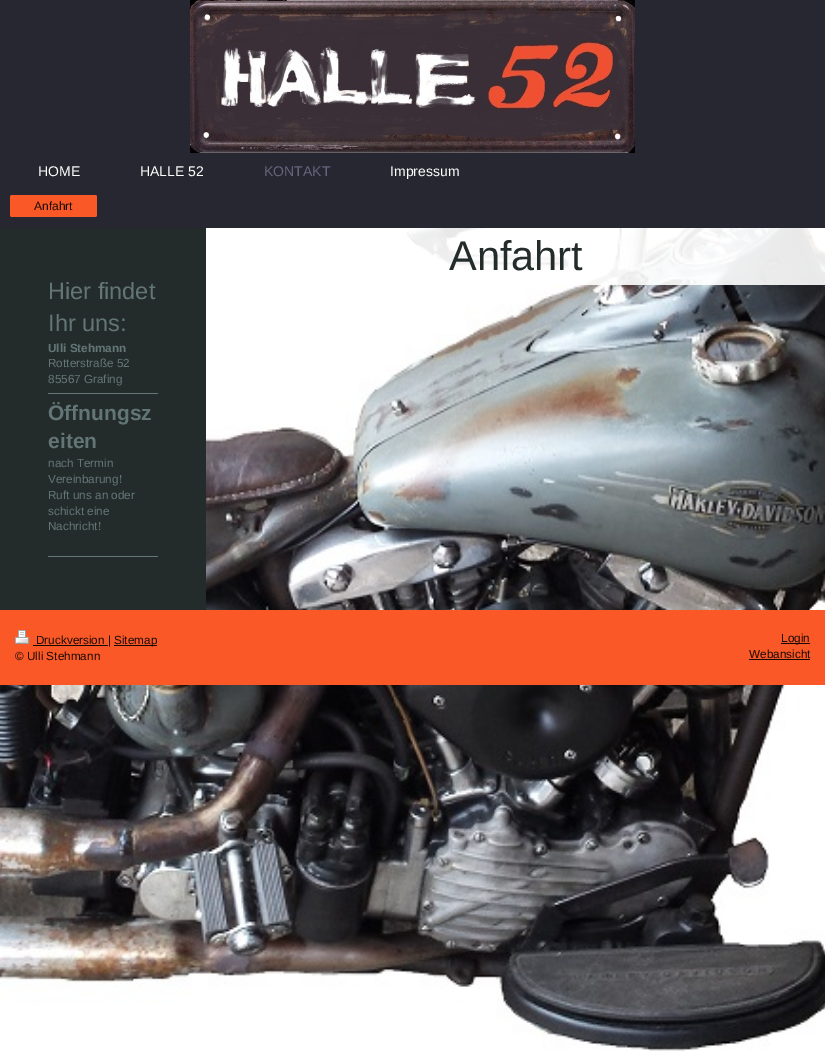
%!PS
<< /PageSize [825 1051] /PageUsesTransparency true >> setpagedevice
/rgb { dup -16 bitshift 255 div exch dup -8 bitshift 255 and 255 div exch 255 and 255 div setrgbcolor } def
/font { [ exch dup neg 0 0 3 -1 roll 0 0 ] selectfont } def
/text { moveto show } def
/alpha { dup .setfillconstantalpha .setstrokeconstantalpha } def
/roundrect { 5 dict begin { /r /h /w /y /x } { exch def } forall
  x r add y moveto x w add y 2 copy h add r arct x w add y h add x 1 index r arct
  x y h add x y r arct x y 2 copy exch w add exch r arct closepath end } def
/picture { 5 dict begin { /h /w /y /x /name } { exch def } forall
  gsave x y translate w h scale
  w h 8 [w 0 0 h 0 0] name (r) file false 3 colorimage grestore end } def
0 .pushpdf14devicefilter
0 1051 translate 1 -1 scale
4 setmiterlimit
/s1 { /LiberationSans-Regular 14 font 16#FFFFFF rgb } def
/s2 { /LiberationSans-Regular 14 font 16#63657D rgb } def
/s3 { /LiberationSans-Regular 12 font 16#190904 rgb } def
/s4 { /LiberationSans-Regular 41.5 font 16#242B2B rgb } def
/s5 { /LiberationSans-Regular 23.5 font 16#637676 rgb } def
/s6 { /LiberationSans-Bold 11.75 font 16#637676 rgb } def
/s7 { /LiberationSans-Regular 11.75 font 16#637676 rgb } def
/s8 { /LiberationSans-Bold 21 font 16#637676 rgb } def
/s9 { /LiberationSans-Regular 11.75 font 16#190904 rgb } def
16#FFFFFF rgb
0 0 825 1051 rectfill
(pic1.raw) 0 228 825 823 picture
16#262730 rgb
0 0 825 228 rectfill
(pic2.raw) 190 0 445 153 picture
s1
(HOME) 38 176 text
(HALLE 52) 140 176 text
s2
(KONTAKT) 264 176 text
s1
(Impressum) 390 176 text
16#FA5826 rgb
10 195 87 22 2 roundrect fill
11 216 85 1 rectfill
s3
(Anfahrt) 34 210 text
0.9 alpha
16#FFFFFF rgb
405 228 420 57 rectfill
1 alpha
s4
(Anfahrt) 449 270 text
0 228 206 382 rectfill
s5
(Hier findet) 48 299 text
(Ihr uns:) 48 331 text
s6
(Ulli Stehmann) 48 352 text
s7
(Rotterstraße 52) 48 367 text
(85567 Grafing) 48 383 text
48 393 110 1 rectfill
s8
(Öffnungsz) 48 420 text
(eiten) 48 448 text
s7
(nach Termin) 48 467 text
(Vereinbarung!) 48 483 text
(Ruft uns an oder) 48 499 text
(schickt eine) 48 515 text
(Nachricht!) 48 530 text
48 556 110 1 rectfill
16#FA5826 rgb
0 610 825 75 rectfill
(pic3.raw) 15 630 14 14 picture
16#190904 rgb
33 645 75 1 rectfill
(Druckversion |) 36 644 text
114 645 43 1 rectfill
(Sitemap) 114 644 text
(© Ulli Stehmann) 15 660 text
781 643 29 1 rectfill
(Login) 781 642 text
(Webansicht) 749 658 text
749 659 61 1 rectfill
.poppdf14devicefilter showpage
